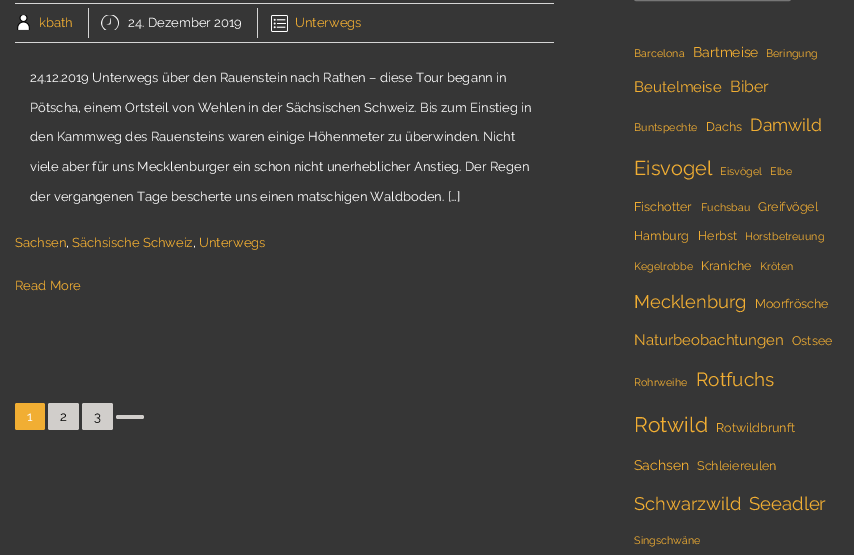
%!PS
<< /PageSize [854 555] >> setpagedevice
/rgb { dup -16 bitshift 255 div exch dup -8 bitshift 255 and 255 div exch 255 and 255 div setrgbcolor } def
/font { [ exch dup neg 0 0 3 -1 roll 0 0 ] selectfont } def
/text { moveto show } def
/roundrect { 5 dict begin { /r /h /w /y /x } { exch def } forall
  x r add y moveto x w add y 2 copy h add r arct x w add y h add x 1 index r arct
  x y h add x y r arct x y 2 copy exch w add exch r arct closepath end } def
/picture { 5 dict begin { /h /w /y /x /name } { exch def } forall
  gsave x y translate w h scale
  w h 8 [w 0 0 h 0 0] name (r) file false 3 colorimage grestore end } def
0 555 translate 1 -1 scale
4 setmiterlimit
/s1 { /Raleway-Regular 13 font 16#F1AE33 rgb } def
/s2 { /Raleway-Regular 13 font 16#FFFFFF rgb } def
/s3 { /Raleway-Regular 13 font 16#000000 rgb } def
/s4 { /Raleway-Regular 10.75 font 16#F1AE33 rgb } def
/s5 { /Raleway-Regular 14 font 16#F1AE33 rgb } def
/s6 { /Raleway-Regular 15 font 16#F1AE33 rgb } def
/s7 { /Raleway-Regular 16 font 16#F1AE33 rgb } def
/s8 { /Raleway-Regular 12.5 font 16#F1AE33 rgb } def
/s9 { /Raleway-Regular 17.5 font 16#F1AE33 rgb } def
/s10 { /Raleway-Regular 20 font 16#F1AE33 rgb } def
/s11 { /Raleway-Regular 18.25 font 16#F1AE33 rgb } def
/s12 { /Raleway-Regular 19 font 16#F1AE33 rgb } def
/s13 { /Raleway-Regular 21 font 16#F1AE33 rgb } def
/s14 { /Raleway-Regular 18.5 font 16#F1AE33 rgb } def
16#363636 rgb
0 0 854 555 rectfill
16#D6D6D6 rgb
15 3 539 1 rectfill
15 42 539 1 rectfill
88 8 1 30 rectfill
(pic1.raw) 17 15 13 15 picture
s1
(kbath) 39 27 text
16#D6D6D6 rgb
257 8 1 30 rectfill
(pic2.raw) 101 15 18 15 picture
s2
(24. Dezember 2019) 128 27 text
(pic3.raw) 271 15 17 17 picture
s1
(Unterwegs) 295 27 text
s2
(24.12.2019 Unterwegs über den Rauenstein nach Rathen – diese Tour begann in) 30 82 text
(Pötscha, einem Ortsteil von Wehlen in der Sächsischen Schweiz. Bis zum Einstieg in) 30 112 text
(den Kammweg des Rauensteins waren einige Höhenmeter zu überwinden. Nicht) 30 141 text
(viele aber für uns Mecklenburger ein schon nicht unerheblicher Anstieg. Der Regen) 30 171 text
(der vergangenen Tage bescherte uns einen matschigen Waldboden. […]) 30 201 text
s1
(Sachsen) 15 247 text
s2
(,) 66 247 text
s1
(Sächsische Schweiz) 72 247 text
s2
(,) 193 247 text
s1
(Unterwegs) 199 247 text
(Read More) 15 290 text
15 403 30 27 2 roundrect fill
s2
(1) 27 421 text
16#D1CECB rgb
48 403 31 27 2 roundrect fill
s3
(2) 60 421 text
16#D1CECB rgb
82 403 31 27 2 roundrect fill
s3
(3) 94 421 text
16#D1CECB rgb
116 415 28 4 2 roundrect fill
16#767676 rgb
634.5 -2.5 156 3 1.5 roundrect stroke
s4
(Barcelona) 634 57 text
s5
(Bartmeise) 693 57 text
s4
(Beringung) 766 57 text
s6
(Beutelmeise) 634 92 text
s7
(Biber) 730 92 text
s4
(Buntspechte) 634 131 text
s8
(Dachs) 706 131 text
s9
(Damwild) 750 131 text
s10
(Eisvogel) 634 175 text
s4
(Eisvögel) 720 175 text
(Elbe) 770 175 text
s8
(Fischotter) 634 211 text
s4
(Fuchsbau) 701 211 text
s8
(Greifvögel) 758 211 text
(Hamburg) 634 240 text
(Herbst) 698 240 text
s4
(Horstbetreuung) 745 240 text
(Kegelrobbe) 634 270 text
s8
(Kraniche) 701 270 text
s4
(Kröten) 760 270 text
s11
(Mecklenburg) 634 308 text
s8
(Moorfrösche) 755 308 text
s6
(Naturbeobachtungen) 634 345 text
s8
(Ostsee) 792 345 text
s4
(Rohrweihe) 634 386 text
s12
(Rotfuchs) 696 386 text
s13
(Rotwild) 634 432 text
s8
(Rotwildbrunft) 716 432 text
s5
(Sachsen) 634 470 text
s8
(Schleiereulen) 697 470 text
s11
(Schwarzwild) 634 510 text
s14
(Seeadler) 749 510 text
s4
(Singschwäne) 634 544 text
showpage
